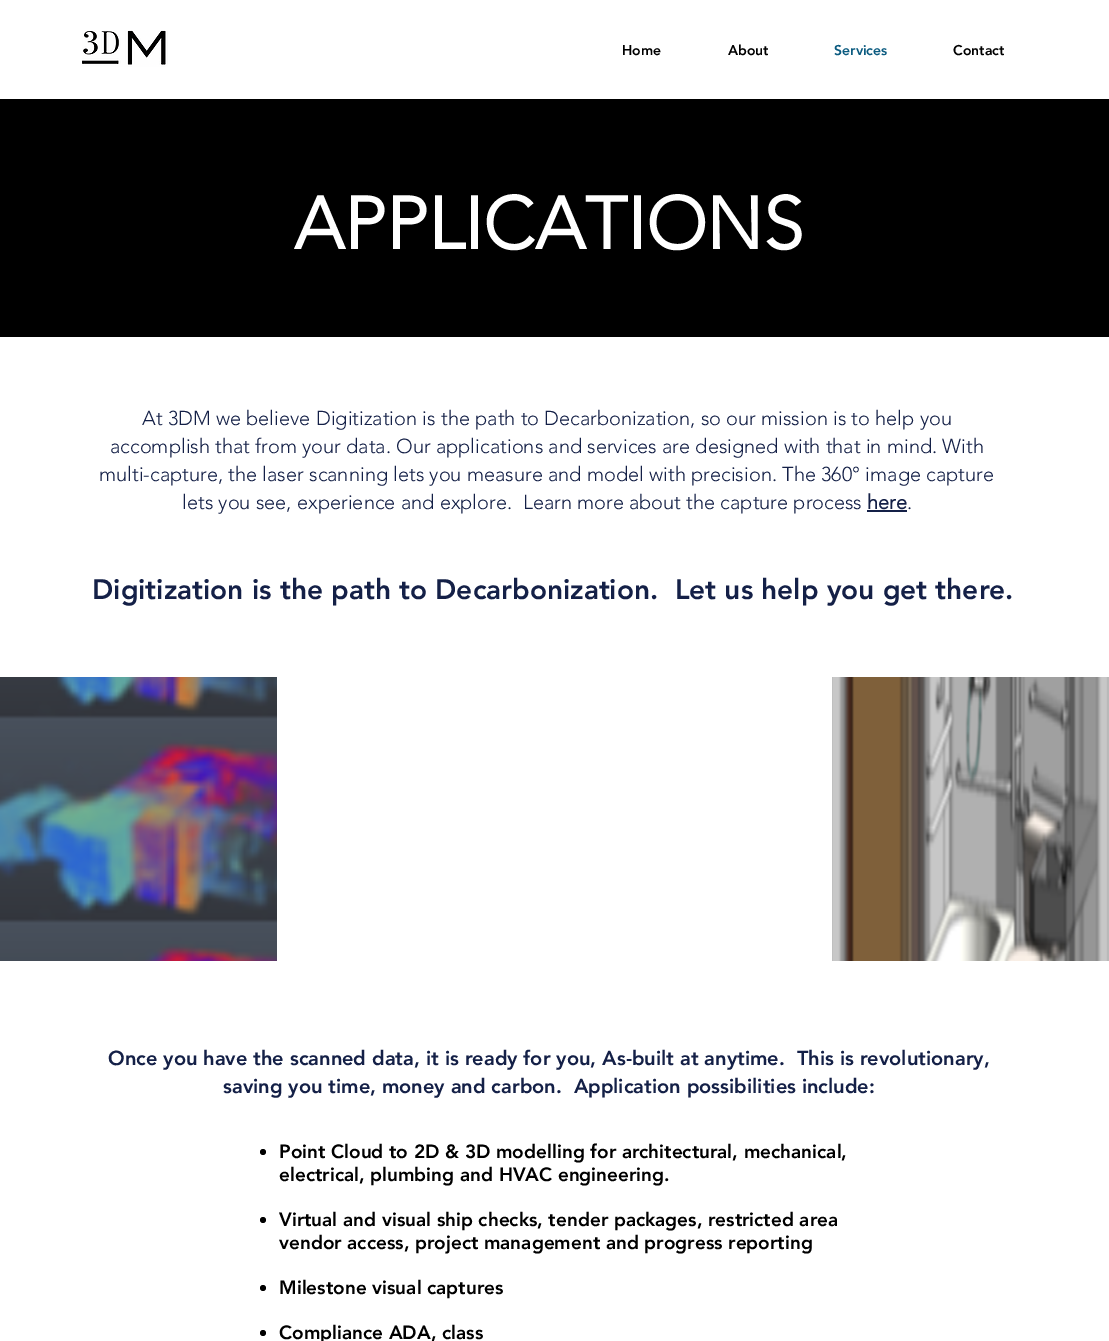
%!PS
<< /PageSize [1109 1341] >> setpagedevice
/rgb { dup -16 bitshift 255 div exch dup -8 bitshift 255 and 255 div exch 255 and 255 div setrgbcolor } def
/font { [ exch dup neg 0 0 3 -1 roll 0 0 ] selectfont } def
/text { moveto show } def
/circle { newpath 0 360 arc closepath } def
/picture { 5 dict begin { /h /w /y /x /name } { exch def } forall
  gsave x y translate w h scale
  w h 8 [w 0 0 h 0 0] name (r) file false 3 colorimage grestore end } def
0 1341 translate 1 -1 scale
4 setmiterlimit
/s1 { /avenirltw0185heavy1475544-Black 14 font 16#000000 rgb } def
/s2 { /avenirltw0185heavy1475544-Black 14 font 16#0B5B80 rgb } def
/s3 { /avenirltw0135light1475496-Bold 73 font 16#FFFFFF rgb } def
/s4 { /avenirltw0135light1475496-Light 20 font 16#142047 rgb } def
/s5 { /avenirltw0135light1475496-Bold 20 font 16#142047 rgb } def
/s6 { /avenirltw0185heavy1475544-Black 28 font 16#142047 rgb } def
/s7 { /avenirltw0185heavy1475544-Black 20 font 16#142047 rgb } def
/s8 { /avenirltw0185heavy1475544-Black 19 font 16#000000 rgb } def
16#FFFFFF rgb
0 0 1109 1341 rectfill
(pic1.raw) 82 30 86 37 picture
s1
(Home) 622 55 text
(About) 728 55 text
s2
(Services) 834 55 text
s1
(Contact) 953 55 text
0 99 1109 238 rectfill
s3
(APPLICATIONS) 294 249 text
s4
(At 3DM we believe Digitization is the path to Decarbonization, so our mission is to help you) 142 425 text
(accomplish that from your data. Our applications and services are designed with that in mind. With) 110 453 text
(multi-capture, the laser scanning lets you measure and model with precision. The 360° image capture) 99 481 text
(lets you see, experience and explore.  Learn more about the capture process) 182 509 text
s5
(here) 867 509 text
s4
(.) 907 509 text
867 510 40 2 rectfill
s6
(Digitization is the path to Decarbonization.  Let us help you get there.) 92 599 text
(pic2.raw) 0 677 277 284 picture
(pic3.raw) 832 677 277 284 picture
s7
(Once you have the scanned data, it is ready for you, As-built at anytime.  This is revolutionary,) 108 1065 text
(saving you time, money and carbon.  Application possibilities include:) 223 1093 text
16#000000 rgb
263 1152 3 circle fill
s8
(Point Cloud to 2D & 3D modelling for architectural, mechanical,) 279 1158 text
(electrical, plumbing and HVAC engineering.) 279 1181 text
263 1220 3 circle fill
(Virtual and visual ship checks, tender packages, restricted area) 279 1226 text
(vendor access, project management and progress reporting) 279 1249 text
263 1288 3 circle fill
(Milestone visual captures) 279 1294 text
263 1333 3 circle fill
(Compliance ADA, class) 279 1339 text
showpage
